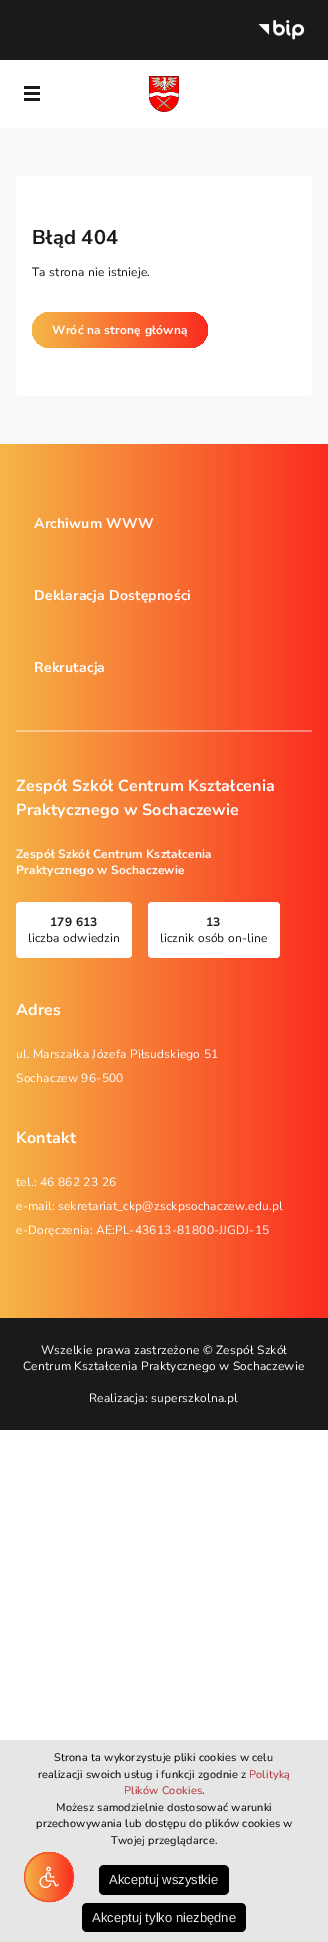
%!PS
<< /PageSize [328 1942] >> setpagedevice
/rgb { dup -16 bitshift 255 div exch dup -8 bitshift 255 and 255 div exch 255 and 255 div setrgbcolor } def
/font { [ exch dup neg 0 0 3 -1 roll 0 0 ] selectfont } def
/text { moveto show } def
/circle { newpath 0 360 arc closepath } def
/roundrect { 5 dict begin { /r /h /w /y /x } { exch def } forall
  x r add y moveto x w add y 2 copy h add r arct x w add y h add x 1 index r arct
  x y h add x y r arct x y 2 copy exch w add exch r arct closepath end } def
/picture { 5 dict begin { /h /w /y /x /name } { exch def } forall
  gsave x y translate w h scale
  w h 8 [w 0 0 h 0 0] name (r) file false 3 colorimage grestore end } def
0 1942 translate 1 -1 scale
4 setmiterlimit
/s1 { /LiberationSans-Regular 13 font 16#E6E6E6 rgb } def
16#FFFFFF rgb
0 0 328 1942 rectfill
16#1A1A1A rgb
0 0 328 60 rectfill
(pic1.raw) 258 20 47 20 picture
24 92 16 3 rectfill
24 86 16 3 rectfill
24 98 16 3 rectfill
(pic2.raw) 149 76 30 36 picture
16#F9F9F9 rgb
0 128 328 316 rectfill
16#FFFFFF rgb
16 176 296 220 4 roundrect fill
/NunitoSans-Bold 20 font
16#1A1A1A rgb
32 244 moveto 0.2 0 (Błąd 404) ashow
/NunitoSans-Regular 12 font
32 276 moveto 0.2 0 (Ta strona nie istnieje.) ashow
gsave 32 312 176 36 18 roundrect clip newpath
<< /ShadingType 2 /ColorSpace /DeviceRGB /Coords [208 330 30 330] /Extend [true true] /Function << /FunctionType 3 /Domain [0 1] /Functions [<< /FunctionType 2 /Domain [0 1] /C0 [0.98 0.176 0.125] /C1 [0.98 0.176 0.125] /N 1 >> << /FunctionType 2 /Domain [0 1] /C0 [0.98 0.176 0.125] /C1 [0.961 0.722 0.278] /N 1 >>] /Bounds [0.01] /Encode [0 1 0 1] >> >> shfill grestore
/NunitoSans-Bold 12 font
16#FFFFFF rgb
52 334 moveto 0.2 0 (Wróć na stronę główną) ashow
gsave 0 444 moveto 328 444 lineto 328 1318 lineto 0 1318 lineto closepath clip newpath
<< /ShadingType 2 /ColorSpace /DeviceRGB /Coords [328 881 -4 881] /Extend [true true] /Function << /FunctionType 3 /Domain [0 1] /Functions [<< /FunctionType 2 /Domain [0 1] /C0 [0.98 0.176 0.125] /C1 [0.98 0.176 0.125] /N 1 >> << /FunctionType 2 /Domain [0 1] /C0 [0.98 0.176 0.125] /C1 [0.961 0.722 0.278] /N 1 >>] /Bounds [0.01] /Encode [0 1 0 1] >> >> shfill grestore
gsave 16 730 moveto 312 730 lineto 312 732 lineto 16 732 lineto closepath clip newpath
<< /ShadingType 2 /ColorSpace /DeviceRGB /Coords [328 881 -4 881] /Extend [true true] /Function << /FunctionType 3 /Domain [0 1] /Functions [<< /FunctionType 2 /Domain [0 1] /C0 [0.988 0.506 0.475] /C1 [0.988 0.506 0.475] /N 1 >> << /FunctionType 2 /Domain [0 1] /C0 [0.988 0.506 0.475] /C1 [0.976 0.831 0.569] /N 1 >>] /Bounds [0.01] /Encode [0 1 0 1] >> >> shfill grestore
/NunitoSans-Bold 14 font
34 528 moveto 0.2 0 (Archiwum WWW) ashow
34 600 moveto 0.2 0 (Deklaracja Dostępności) ashow
34 672 moveto 0.2 0 (Rekrutacja) ashow
/NunitoSans-Bold 16 font
16 791 moveto 0.2 0 (Zespół Szkół Centrum Kształcenia) ashow
16 815 moveto 0.2 0 (Praktycznego w Sochaczewie) ashow
/NunitoSans-Bold 12 font
16 858 moveto 0.2 0 (Zespół Szkół Centrum Kształcenia) ashow
16 874 moveto 0.2 0 (Praktycznego w Sochaczewie) ashow
16 902 116 56 4 roundrect fill
16#1A1A1A rgb
50 926 moveto 0.2 0 (179 613) ashow
/NunitoSans-Regular 12 font
28 942 moveto 0.2 0 (liczba odwiedzin) ashow
16#FFFFFF rgb
148 902 132 56 4 roundrect fill
/NunitoSans-Bold 12 font
16#1A1A1A rgb
206 926 moveto 0.2 0 (13) ashow
/NunitoSans-Regular 12 font
160 942 moveto 0.2 0 (licznik osób on-line) ashow
/NunitoSans-Bold 16 font
16#FFFFFF rgb
16 1015 moveto 0.2 0 (Adres) ashow
/NunitoSans-Regular 12 font
16 1058 moveto 0.2 0 (ul. Marszałka Józefa Piłsudskiego 51) ashow
16 1082 moveto 0.2 0 (Sochaczew 96-500) ashow
/NunitoSans-Bold 16 font
16 1143 moveto 0.2 0 (Kontakt) ashow
/NunitoSans-Regular 12 font
16 1186 moveto 0.2 0 (tel.: 46 862 23 26) ashow
16 1210 moveto 0.2 0 (e-mail: sekretariat_ckp@zsckpsochaczew.edu.pl) ashow
16 1234 moveto 0.2 0 (e-Doręczenia: AE:PL-43613-81800-JJGDJ-15) ashow
16#1A1A1A rgb
0 1318 328 112 rectfill
16#FFFFFF rgb
41 1354 moveto 0.2 0 (Wszelkie prawa zastrzeżone © Zespół Szkół) ashow
23 1370 moveto 0.2 0 (Centrum Kształcenia Praktycznego w Sochaczewie) ashow
89 1402 moveto 0.2 0 (Realizacja: superszkolna.pl) ashow
16#E6E6E6 rgb
0 1740 328 202 rectfill
/NunitoSans-Regular 11 font
16#000000 rgb
54 1761 moveto 0.2 0 (Strona ta wykorzystuje pliki cookies w celu) ashow
38 1778 moveto 0.2 0 (realizacji swoich usług i funkcji zgodnie z) ashow
16#B32B32 rgb
249 1778 moveto 0.2 0 (Polityką) ashow
124 1794 moveto 0.2 0 (Plików Cookies) ashow
16#000000 rgb
202 1794 moveto 0.2 0 (.) ashow
56 1811 moveto 0.2 0 (Możesz samodzielnie dostosować warunki) ashow
36 1827 moveto 0.2 0 (przechowywania lub dostępu do plików cookies w) ashow
111 1844 moveto 0.2 0 (Twojej przeglądarce.) ashow
99 1865 130 30 5 roundrect fill
s1
(Akceptuj wszystkie) 109 1884 text
16#000000 rgb
82 1903 164 29 5 roundrect fill
s1
(Akceptuj tylko niezbędne) 92 1922 text
gsave
24 1852 50 50 25 roundrect clip newpath
gsave 25 1852 moveto 73 1852 lineto 73 1902 lineto 25 1902 lineto closepath clip newpath
<< /ShadingType 2 /ColorSpace /DeviceRGB /Coords [73 1877 24 1877] /Extend [true true] /Function << /FunctionType 3 /Domain [0 1] /Functions [<< /FunctionType 2 /Domain [0 1] /C0 [0.98 0.176 0.125] /C1 [0.98 0.176 0.125] /N 1 >> << /FunctionType 2 /Domain [0 1] /C0 [0.98 0.176 0.125] /C1 [0.961 0.722 0.278] /N 1 >>] /Bounds [0.01] /Encode [0 1 0 1] >> >> shfill grestore
grestore
16#F94C29 rgb
49 1877 24.5 circle stroke
(pic3.raw) 39 1866 20 22 picture
showpage
